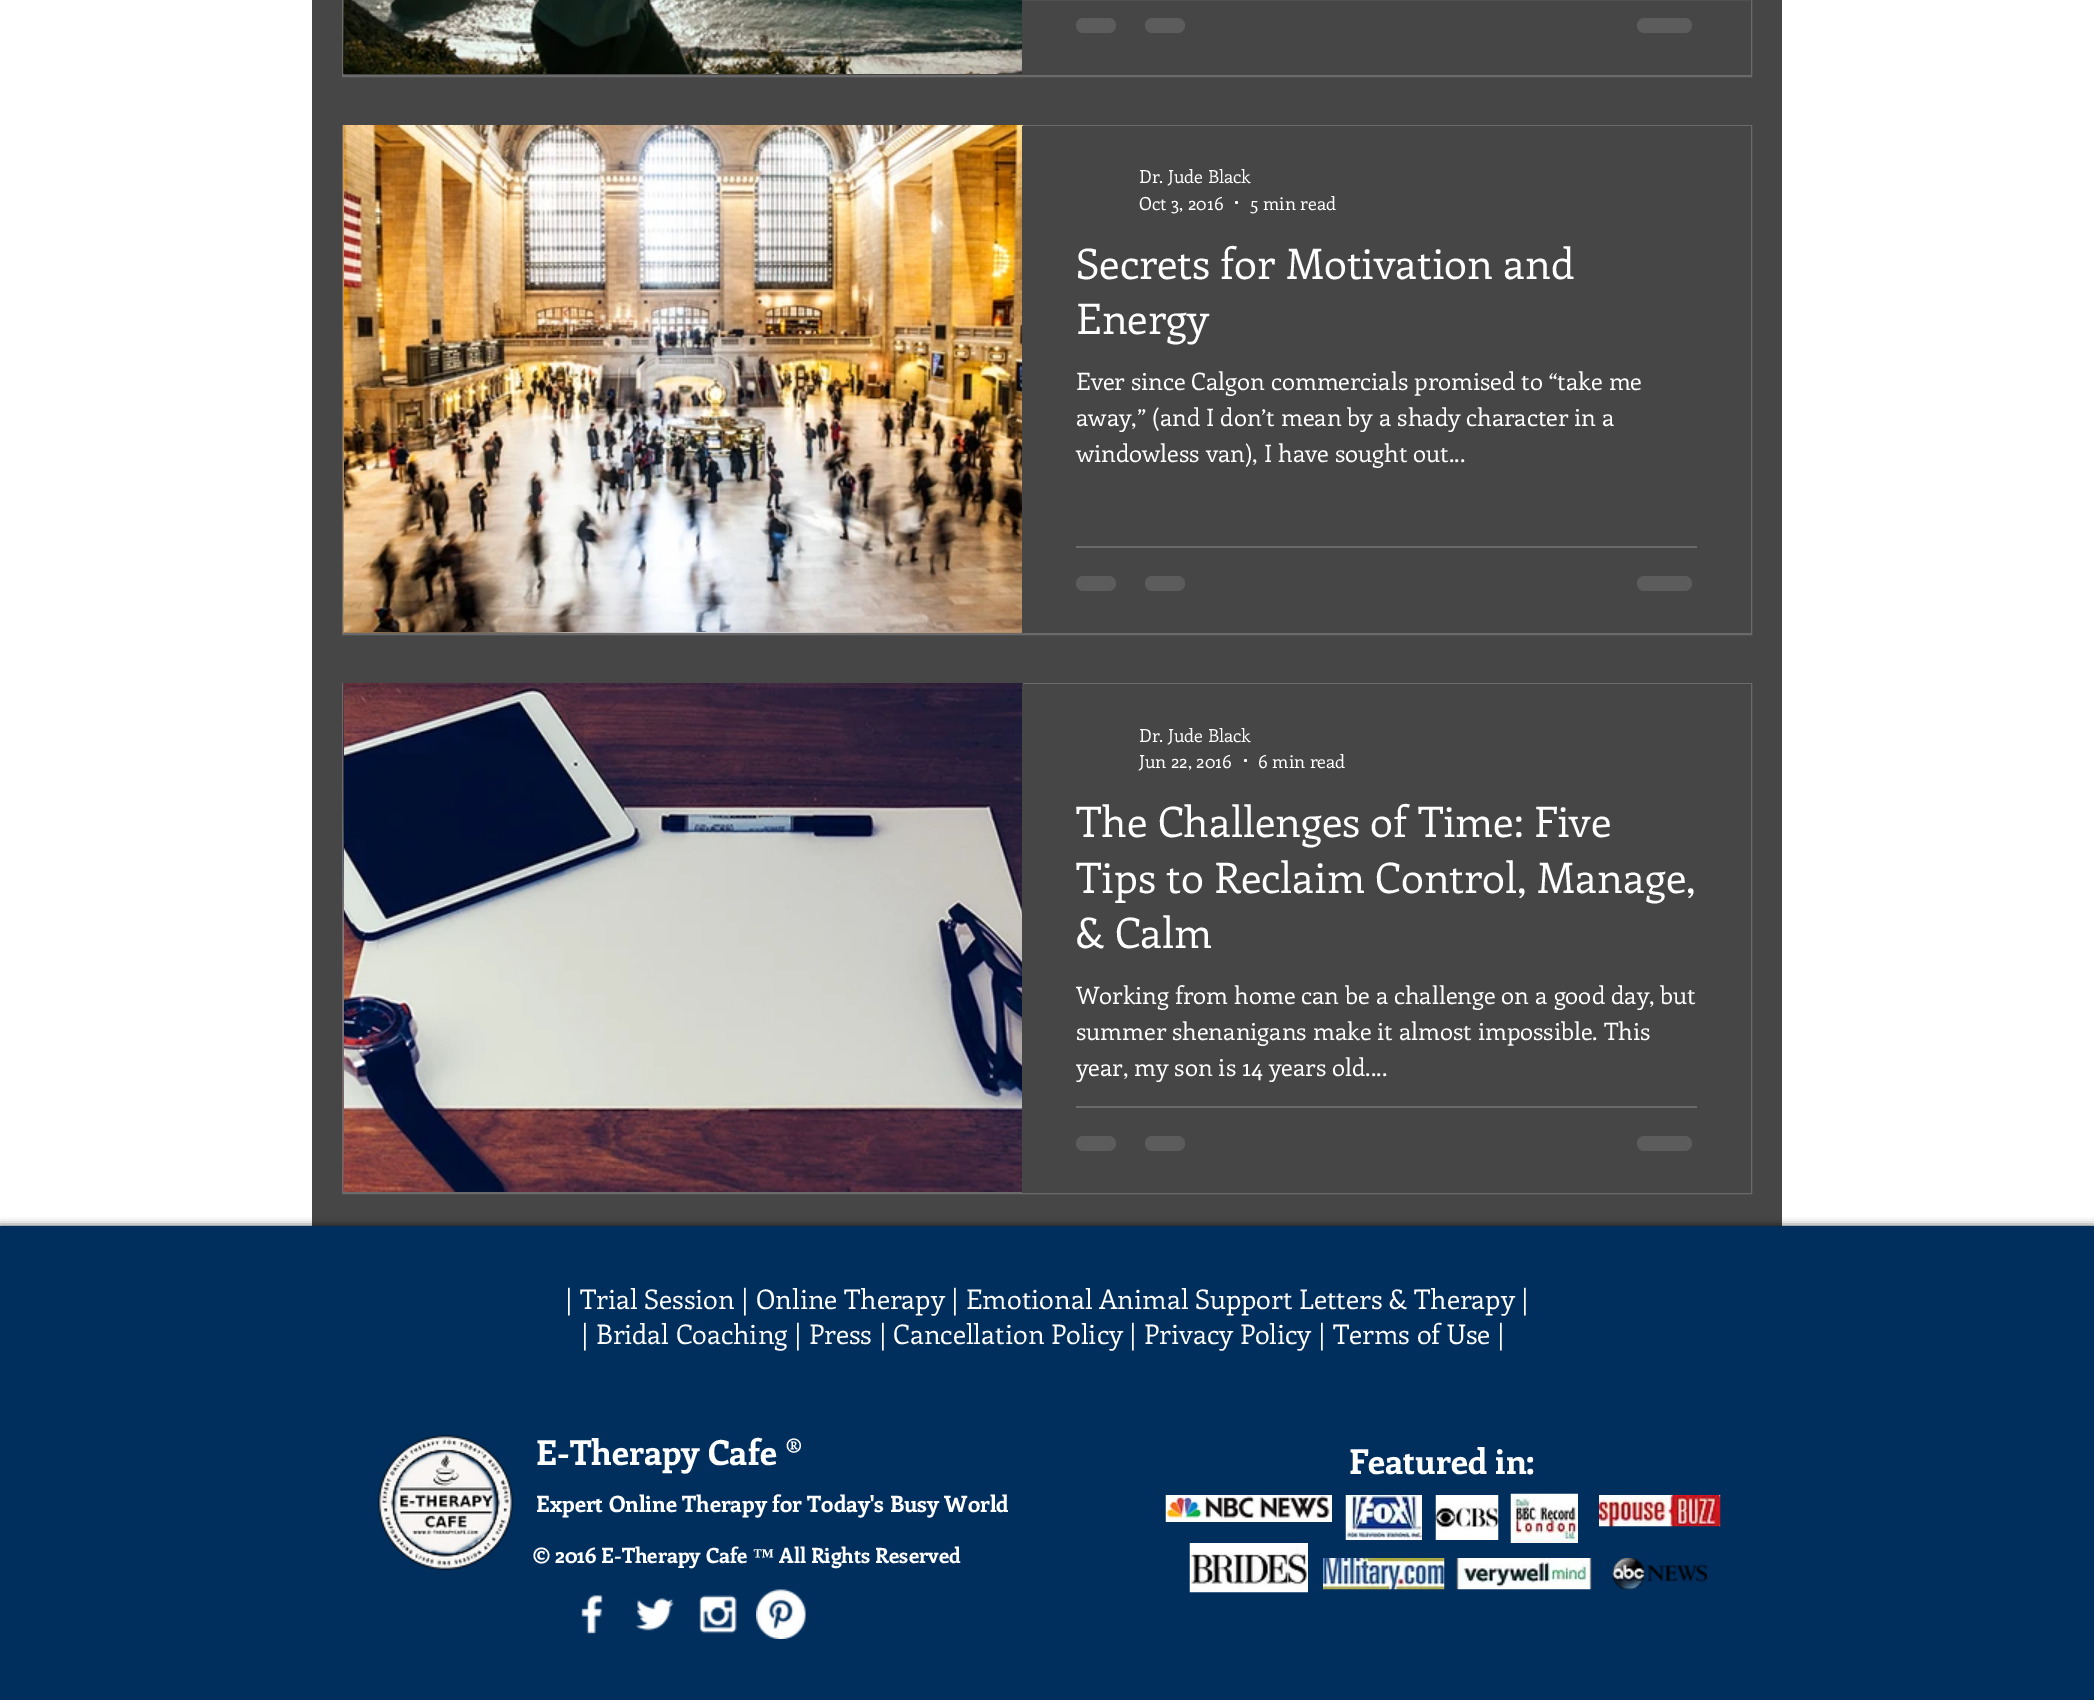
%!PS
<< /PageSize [2094 1700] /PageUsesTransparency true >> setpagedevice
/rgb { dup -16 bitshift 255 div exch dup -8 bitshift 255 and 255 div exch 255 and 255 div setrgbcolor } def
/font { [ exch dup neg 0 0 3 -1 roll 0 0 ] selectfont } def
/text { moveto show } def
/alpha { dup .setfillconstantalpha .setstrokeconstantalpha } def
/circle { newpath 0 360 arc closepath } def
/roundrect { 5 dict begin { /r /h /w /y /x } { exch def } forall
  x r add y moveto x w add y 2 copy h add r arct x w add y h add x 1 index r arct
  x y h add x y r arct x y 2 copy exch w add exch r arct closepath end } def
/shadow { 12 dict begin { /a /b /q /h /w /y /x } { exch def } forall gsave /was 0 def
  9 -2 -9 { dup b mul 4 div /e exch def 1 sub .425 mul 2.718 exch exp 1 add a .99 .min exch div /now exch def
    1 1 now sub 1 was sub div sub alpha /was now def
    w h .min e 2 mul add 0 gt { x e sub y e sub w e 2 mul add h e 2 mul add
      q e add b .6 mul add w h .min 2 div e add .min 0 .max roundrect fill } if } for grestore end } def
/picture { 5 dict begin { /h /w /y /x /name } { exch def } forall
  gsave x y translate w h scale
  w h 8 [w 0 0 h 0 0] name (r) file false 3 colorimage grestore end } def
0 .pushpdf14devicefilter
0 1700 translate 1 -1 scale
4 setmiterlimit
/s1 { /Enriqueta-Regular 18 font 16#FFFFFF rgb } def
/s2 { /Enriqueta-Regular 42 font 16#FFFFFF rgb } def
/s3 { /Enriqueta-Regular 24 font 16#FFFFFF rgb } def
/s4 { /Enriqueta-Regular 27 font 16#FFFFFF rgb } def
/s5 { /Enriqueta-Bold 34.5 font 16#FFFFFF rgb } def
/s6 { /Enriqueta-Bold 22.5 font 16#FFFFFF rgb } def
/s7 { /Enriqueta-Bold 21 font 16#FFFFFF rgb } def
/s8 { /LiberationSerif-Bold 21 font 16#FFFFFF rgb } def
16#FFFFFF rgb
0 0 2094 1700 rectfill
16#474646 rgb
312 0 1470 1226 rectfill
16#6A6A6A rgb
2 setlinewidth
343 -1 1408 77 rectstroke
(pic1.raw) 343 0 1 74 picture
(pic2.raw) 344 0 678 74 picture
16#474646 rgb
1750 0 1 75 rectfill
16#5D5C5C rgb
1076 18 40 15 7.5 roundrect fill
1145 18 40 15 7.5 roundrect fill
1637 18 55 15 7.5 roundrect fill
16#6A6A6A rgb
343 126 1408 508 rectstroke
(pic3.raw) 343 125 679 508 picture
(pic4.raw) 344 125 679 507 picture
16#474646 rgb
1022 126 729 507 rectfill
s1
(Dr. Jude Black) 1139 183 text
(Oct 3, 2016) 1139 210 text
1236.5 202.5 1.5 circle fill
(5 min read) 1250 210 text
s2
(Secrets for Motivation and) 1076 279 text
(Energy) 1076 334 text
s3
(Ever since Calgon commercials promised to “take me) 1076 390 text
(away,” \(and I don’t mean by a shady character in a) 1076 426 text
(windowless van\), I have sought out...) 1076 462 text
16#6C6B6B rgb
1076 546 621 2 rectfill
16#5D5C5C rgb
1076 576 40 15 7.5 roundrect fill
1145 576 40 15 7.5 roundrect fill
1637 576 55 15 7.5 roundrect fill
16#6A6A6A rgb
343 684 1408 509 rectstroke
(pic5.raw) 343 683 1 509 picture
(pic6.raw) 344 683 679 509 picture
16#474646 rgb
1022 684 729 509 rectfill
s1
(Dr. Jude Black) 1139 742 text
(Jun 22, 2016) 1139 768 text
1245.5 760.5 1.5 circle fill
(6 min read) 1258 768 text
gsave
1076 792 621 167 rectclip
s2
(The Challenges of Time: Five) 1076 837 text
(Tips to Reclaim Control, Manage,) 1076 893 text
grestore
s2
(& Calm) 1076 948 text
gsave
1076 977 621 108 rectclip
s3
(Working from home can be a challenge on a good day, but) 1076 1004 text
grestore
s3
(summer shenanigans make it almost impossible. This) 1076 1040 text
gsave
1076 977 621 108 rectclip
(year, my son is 14 years old....) 1076 1076 text
grestore
16#6C6B6B rgb
1076 1106 621 2 rectfill
16#5D5C5C rgb
1076 1136 40 15 7.5 roundrect fill
1145 1136 40 15 7.5 roundrect fill
1637 1136 55 15 7.5 roundrect fill
16#000000 rgb
0 1226 2094 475 0 4 0.7 shadow
16#002E5D rgb
0 1226 2094 474 rectfill
s4
(| Trial Session | Online Therapy | Emotional Animal Support Letters & Therapy |) 565 1309 text
(| Bridal Coaching | Press | Cancellation Policy | Privacy Policy | Terms of Use |) 581 1344 text
(pic7.raw) 377 1434 137 137 picture
s5
(E-Therapy Cafe ®) 536 1465 text
s6
(Expert Online Therapy for Today's Busy World) 536 1512 text
s7
(© 2016 E-Therapy Cafe) 533 1563 text
s8
(™) 753 1563 text
s7
(All Rights Reserved) 779 1563 text
(pic8.raw) 581 1595 22 39 picture
(pic9.raw) 635 1598 39 33 picture
(pic10.raw) 699 1595 38 39 picture
(pic11.raw) 756 1589 50 50 picture
s5
(Featured in:) 1349 1474 text
(pic12.raw) 1165 1495 167 27 picture
(pic13.raw) 1345 1495 77 45 picture
(pic14.raw) 1435 1495 64 45 picture
(pic15.raw) 1510 1493 68 50 picture
(pic16.raw) 1599 1495 122 32 picture
(pic17.raw) 1189 1543 119 50 picture
(pic18.raw) 1323 1558 122 32 picture
(pic19.raw) 1456 1558 136 32 picture
(pic20.raw) 1612 1558 95 32 picture
.poppdf14devicefilter showpage
